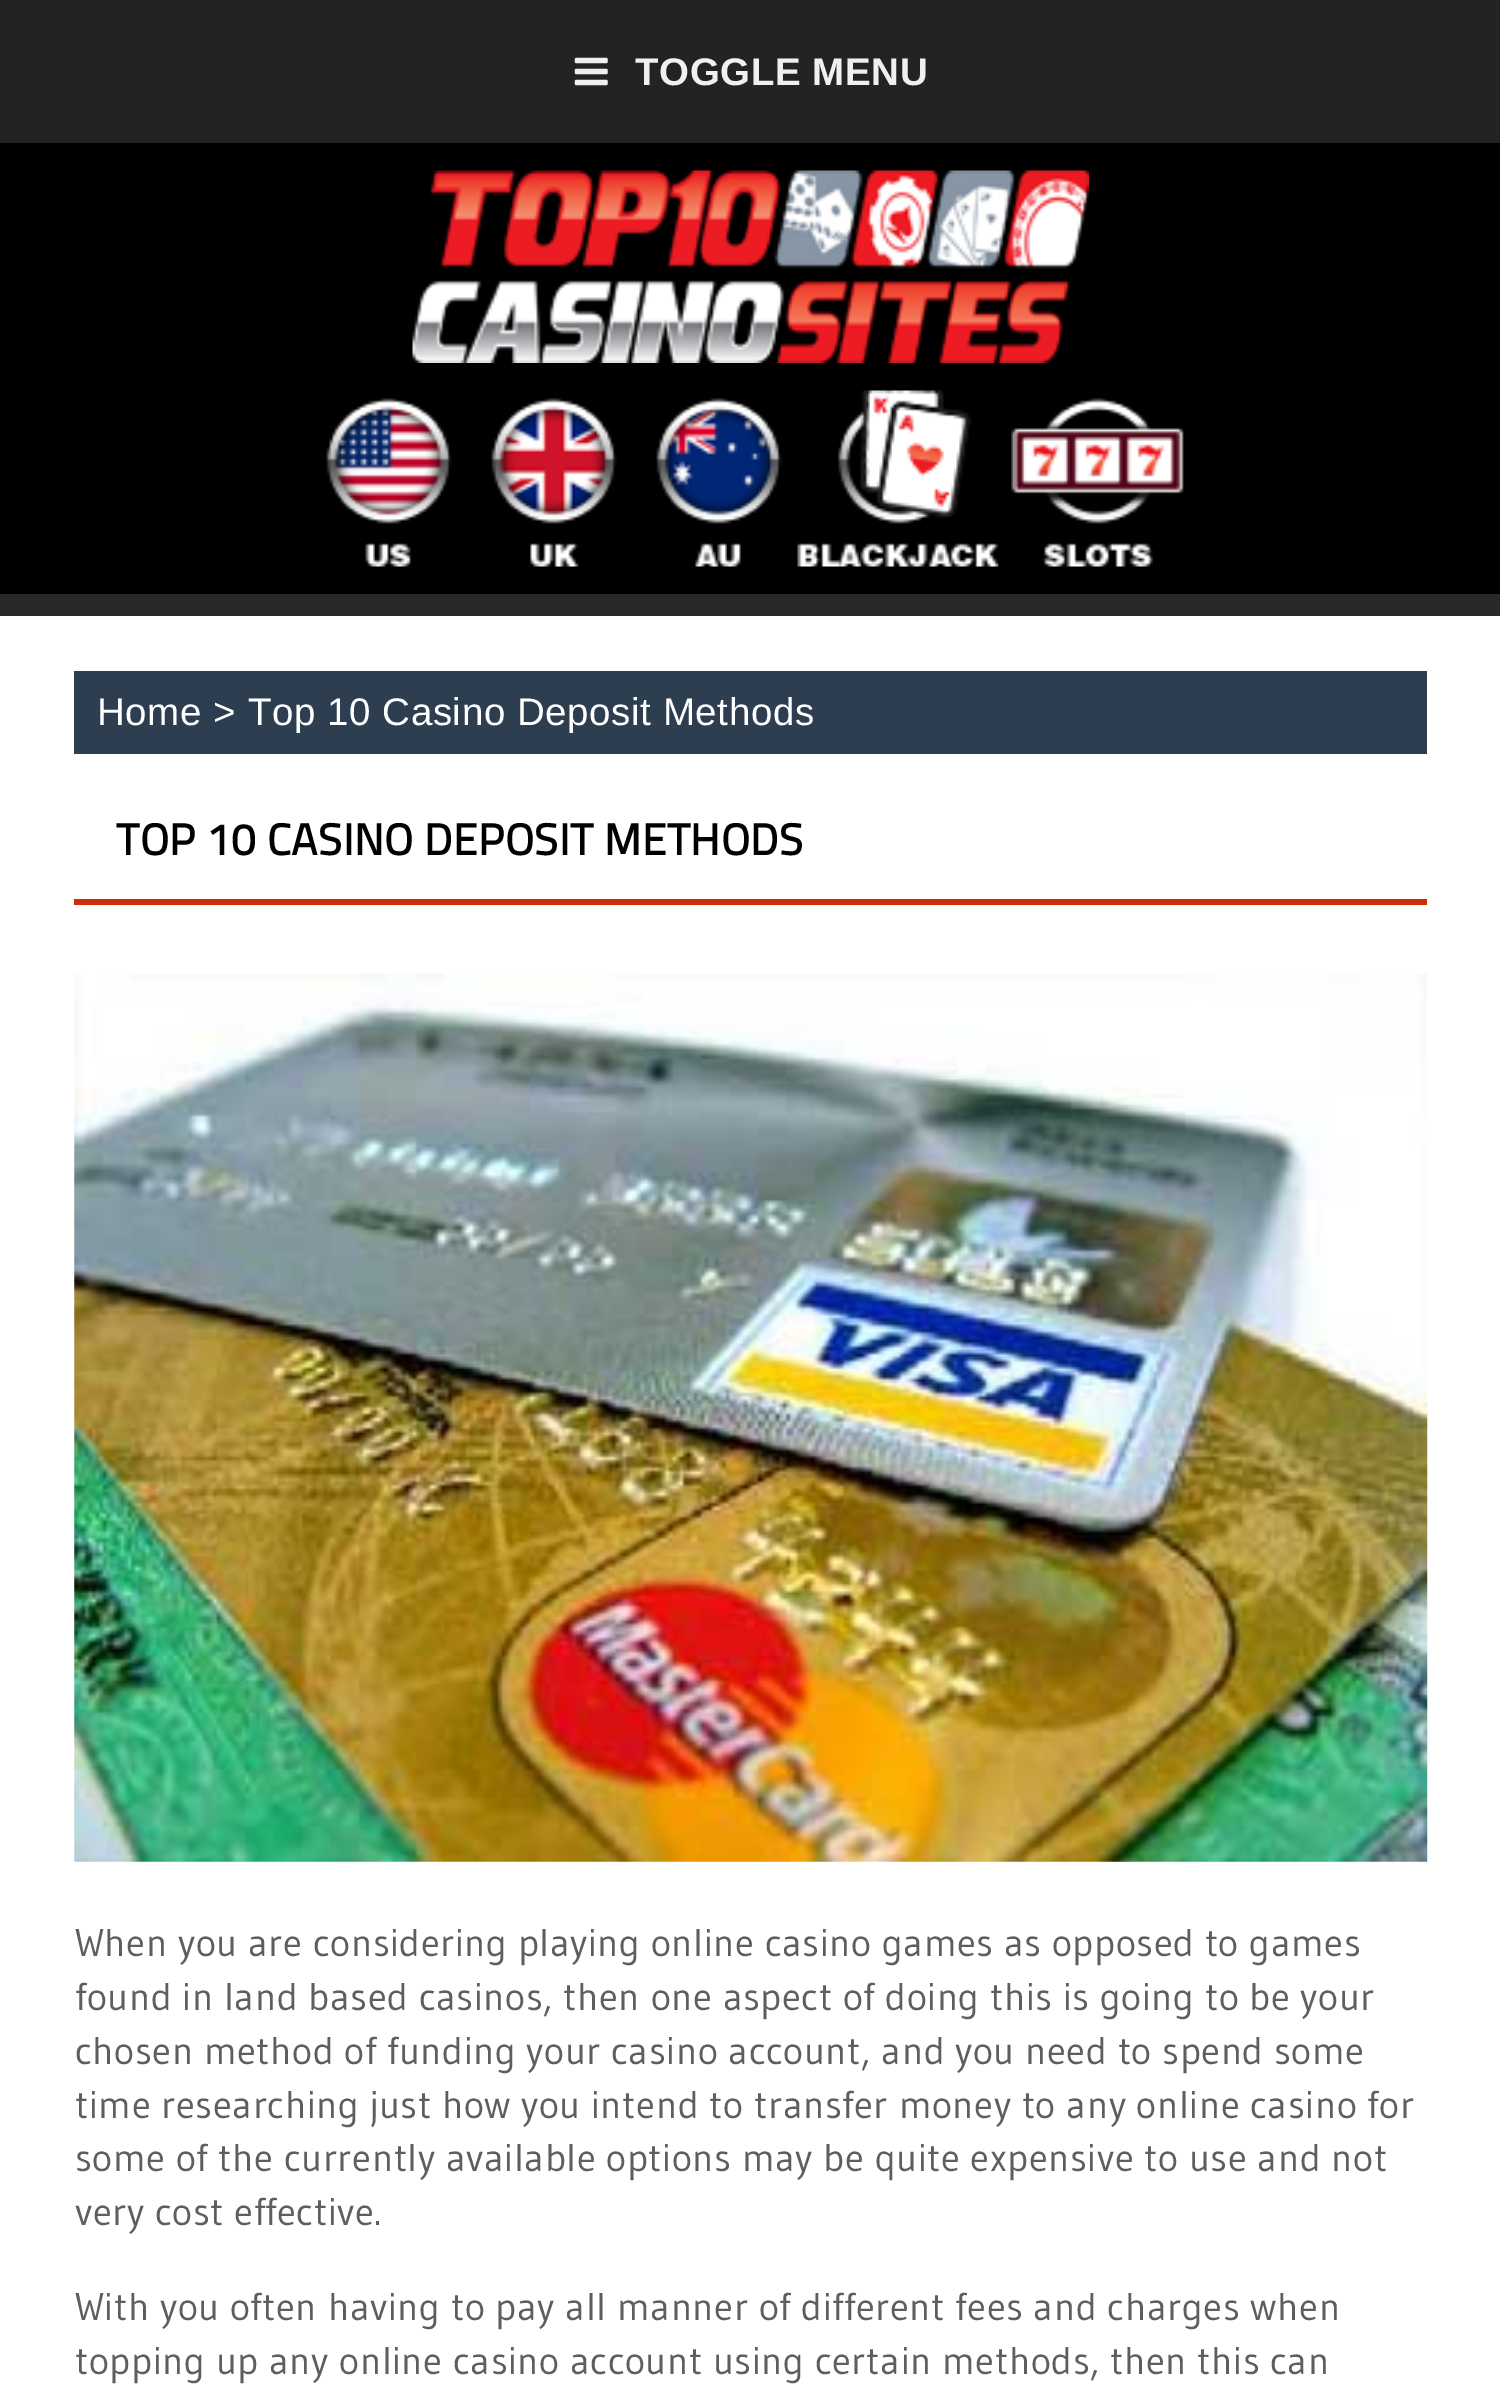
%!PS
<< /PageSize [1500 2385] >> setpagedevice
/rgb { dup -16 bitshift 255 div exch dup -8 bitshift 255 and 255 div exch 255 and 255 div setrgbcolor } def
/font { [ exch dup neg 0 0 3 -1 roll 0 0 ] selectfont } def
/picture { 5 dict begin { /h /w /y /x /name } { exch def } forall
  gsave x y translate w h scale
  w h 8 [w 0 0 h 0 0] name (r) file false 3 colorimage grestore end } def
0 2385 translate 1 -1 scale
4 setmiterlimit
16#FFFFFF rgb
0 0 1500 2385 rectfill
16#232323 rgb
0 0 1500 143 rectfill
(pic1.raw) 574 57 34 29 picture
/LiberationSans-Bold 38.5 font
16#F0F0F0 rgb
635 85 moveto 0.58 0 (TOGGLE MENU) ashow
16#000000 rgb
0 143 1500 451 rectfill
(pic2.raw) 412 170 677 193 picture
(pic3.raw) 326 398 126 169 picture
(pic4.raw) 491 398 126 169 picture
(pic5.raw) 656 398 126 169 picture
(pic6.raw) 797 390 202 177 picture
(pic7.raw) 1011 398 173 169 picture
16#292929 rgb
0 594 1500 22 rectfill
16#2C3E50 rgb
74 671 1353 83 rectfill
/LiberationSans-Regular 38.5 font
16#FFFFFF rgb
97 725 moveto 0.58 0 (Home > Top 10 Casino Deposit Methods) ashow
16#CB2F03 rgb
74 899 1353 6 rectfill
/TitilliumWeb-Bold 44 font
16#000000 rgb
116 855 moveto 0.58 0 (TOP 10 CASINO DEPOSIT METHODS) ashow
(pic8.raw) 74 973 1354 889 picture
/Gudea-Regular 38.5 font
16#5E5E5E rgb
75 1956 moveto 0.58 0 (When you are considering playing online casino games as opposed to games) ashow
75 2010 moveto 0.58 0 (found in land based casinos, then one aspect of doing this is going to be your) ashow
75 2064 moveto 0.58 0 (chosen method of funding your casino account, and you need to spend some) ashow
75 2118 moveto 0.58 0 (time researching just how you intend to transfer money to any online casino for) ashow
75 2171 moveto 0.58 0 (some of the currently available options may be quite expensive to use and not) ashow
75 2225 moveto 0.58 0 (very cost effective.) ashow
75 2320 moveto 0.58 0 (With you often having to pay all manner of different fees and charges when) ashow
75 2374 moveto 0.58 0 (topping up any online casino account using certain methods, then this can) ashow
showpage
